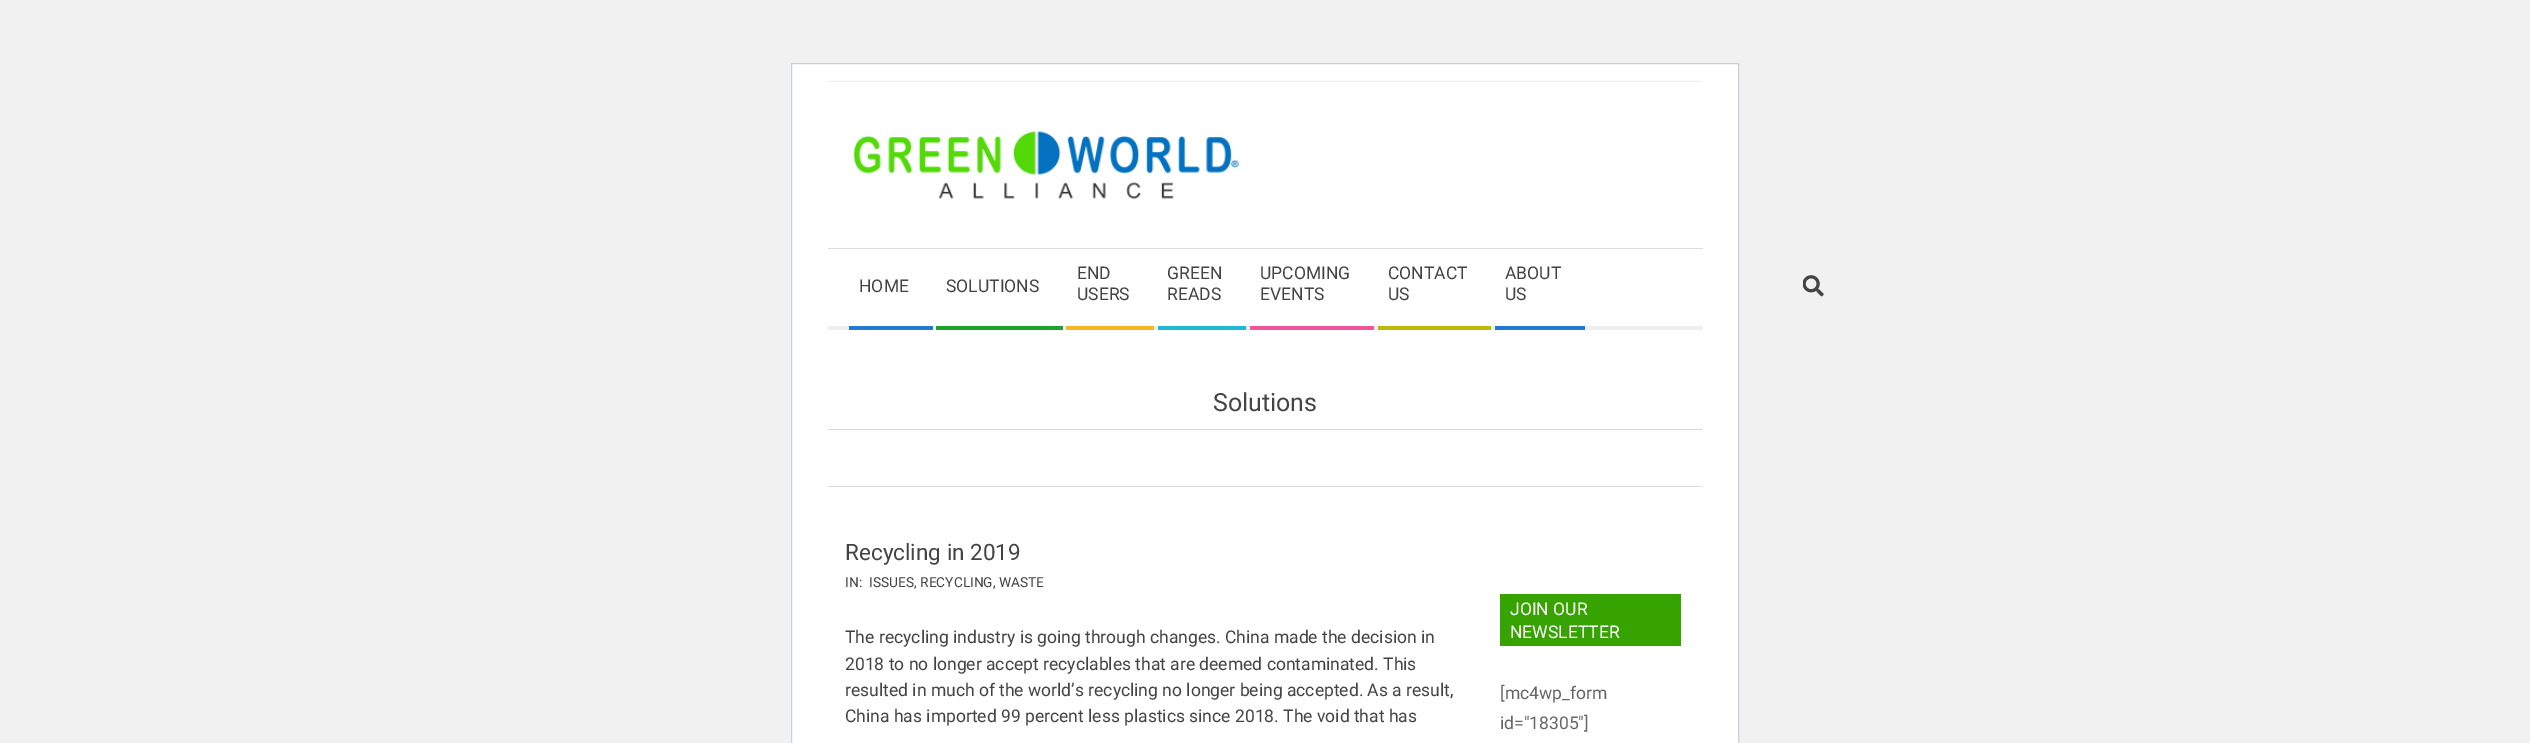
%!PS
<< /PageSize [2530 743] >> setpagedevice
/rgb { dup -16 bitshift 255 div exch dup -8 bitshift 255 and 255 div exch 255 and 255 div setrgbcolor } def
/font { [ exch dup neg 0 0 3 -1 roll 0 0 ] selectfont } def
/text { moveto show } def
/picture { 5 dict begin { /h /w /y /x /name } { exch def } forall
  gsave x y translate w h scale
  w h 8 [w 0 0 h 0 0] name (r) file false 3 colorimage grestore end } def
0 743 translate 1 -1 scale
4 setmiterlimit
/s1 { /Roboto-Regular 17.5 font 16#444444 rgb } def
/s2 { /Roboto-Regular 25 font 16#444444 rgb } def
/s3 { /Roboto-Regular 22.5 font 16#444444 rgb } def
/s4 { /Roboto-Regular 13.75 font 16#444444 rgb } def
/s5 { /Roboto-Regular 17.5 font 16#FFFFFF rgb } def
/s6 { /Roboto-Regular 17.5 font 16#666666 rgb } def
16#F1F1F1 rgb
0 0 2530 743 rectfill
16#FFFFFF rgb
791.5 63.5 moveto 1738.5 63.5 lineto 1738.5 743.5 lineto 791.5 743.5 lineto closepath gsave fill grestore
16#CCD0D4 rgb
stroke
16#EEEEEE rgb
828 81 875 1 rectfill
16#DDDDDD rgb
828 248 875 1 rectfill
(pic1.raw) 853 131 386 68 picture
16#EEEEEE rgb
828 326 875 4 rectfill
s1
(HOME) 859 292 text
16#2279D2 rgb
849 326 84 4 rectfill
s1
(SOLUTIONS) 946 292 text
16#1AA331 rgb
936 326 127 4 rectfill
s1
(END) 1077 279 text
(USERS) 1077 300 text
16#F7B528 rgb
1066 326 88 4 rectfill
s1
(GREEN) 1167 279 text
(READS) 1167 300 text
16#21BAD5 rgb
1158 326 88 4 rectfill
s1
(UPCOMING) 1260 279 text
(EVENTS) 1260 300 text
16#EE559D rgb
1250 326 124 4 rectfill
s1
(CONTACT) 1388 279 text
(US) 1388 300 text
16#BCBA08 rgb
1378 326 113 4 rectfill
s1
(ABOUT) 1505 279 text
(US) 1505 300 text
16#2279D2 rgb
1495 326 90 4 rectfill
(pic2.raw) 1803 275 21 22 picture
16#DDDDDD rgb
828 486 875 1 rectfill
16#DADADA rgb
828 429 875 1 rectfill
s2
(Solutions) 1213 411 text
s3
(Recycling in 2019) 845 560 text
s4
(IN:) 845 587 text
(ISSUES, RECYCLING, WASTE) 869 587 text
s1
(The recycling industry is going through changes. China made the decision in) 845 643 text
(2018 to no longer accept recyclables that are deemed contaminated. This) 845 670 text
(resulted in much of the world’s recycling no longer being accepted. As a result,) 845 696 text
(China has imported 99 percent less plastics since 2018. The void that has) 845 722 text
16#37A301 rgb
1500 594 181 52 rectfill
s5
(JOIN OUR) 1510 615 text
(NEWSLETTER) 1510 638 text
s6
([mc4wp_form) 1500 699 text
(id="18305"]) 1500 729 text
showpage
